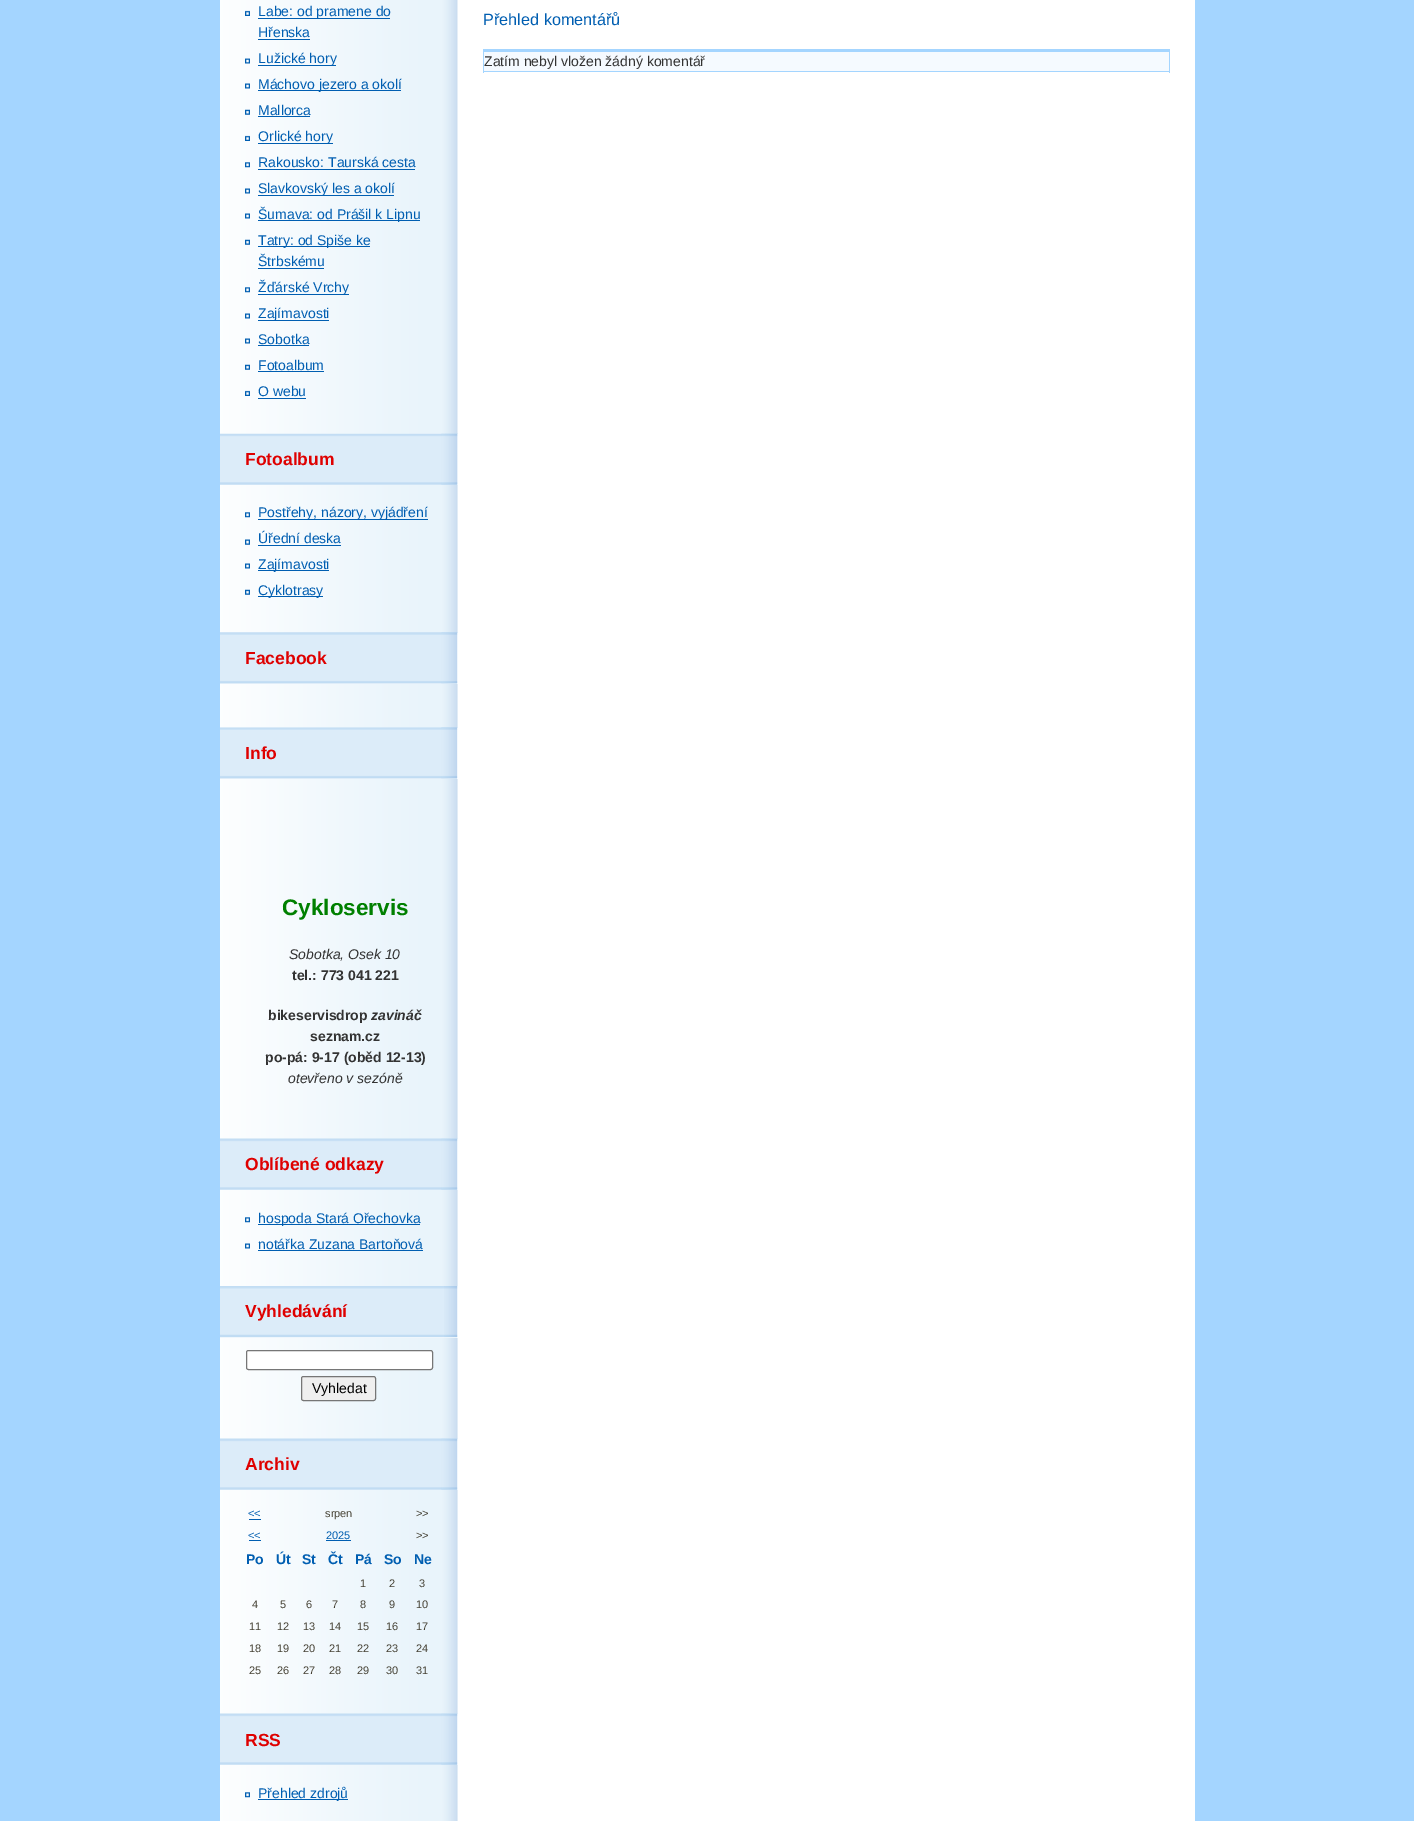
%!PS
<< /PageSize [1414 1821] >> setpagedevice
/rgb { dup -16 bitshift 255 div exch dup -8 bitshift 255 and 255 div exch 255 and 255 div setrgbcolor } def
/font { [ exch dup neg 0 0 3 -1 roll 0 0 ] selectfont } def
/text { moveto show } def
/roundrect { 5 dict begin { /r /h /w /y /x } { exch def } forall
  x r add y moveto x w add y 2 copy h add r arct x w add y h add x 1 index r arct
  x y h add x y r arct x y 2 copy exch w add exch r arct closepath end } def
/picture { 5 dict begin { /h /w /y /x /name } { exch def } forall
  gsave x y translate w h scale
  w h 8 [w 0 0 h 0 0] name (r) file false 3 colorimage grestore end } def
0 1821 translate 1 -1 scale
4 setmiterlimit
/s1 { /LiberationSans-Regular 14 font 16#005EB1 rgb } def
/s2 { /LiberationSans-Bold 17.5 font 16#DF0000 rgb } def
/s3 { /LiberationSans-Bold 22.5 font 16#008000 rgb } def
/s4 { /LiberationSans-Italic 14 font 16#333333 rgb } def
/s5 { /LiberationSans-Bold 14 font 16#333333 rgb } def
/s6 { /LiberationSans-BoldItalic 14 font 16#333333 rgb } def
/s7 { /LiberationSans-Regular 14 font 16#000000 rgb } def
/s8 { /LiberationSans-Regular 11 font 16#005EB1 rgb } def
/s9 { /LiberationSans-Regular 11 font 16#464235 rgb } def
/s10 { /LiberationSans-Bold 14 font 16#005EB1 rgb } def
/s11 { /LiberationSans-Regular 16.25 font 16#005EB1 rgb } def
/s12 { /LiberationSans-Regular 14 font 16#333333 rgb } def
16#A4D5FF rgb
0 0 1414 1821 rectfill
16#FFFFFF rgb
220 0 975 1821 rectfill
(pic1.raw) 241 0 217 434 picture
(pic2.raw) 220 0 225 434 picture
(pic3.raw) 245 10 5 6 picture
16#005EB1 rgb
258 18 132 1 rectfill
s1
(Labe: od pramene do) 258 16 text
(Hřenska) 258 37 text
258 39 52 1 rectfill
(pic4.raw) 245 58 5 6 picture
258 65 78 1 rectfill
(Lužické hory) 258 63 text
(pic5.raw) 245 83 5 6 picture
258 90 143 1 rectfill
(Máchovo jezero a okolí) 258 89 text
(pic6.raw) 245 109 5 6 picture
(Mallorca) 258 115 text
258 116 52 1 rectfill
(pic3.raw) 245 135 5 6 picture
258 143 75 1 rectfill
(Orlické hory) 258 141 text
(pic7.raw) 245 162 5 6 picture
(Rakousko: Taurská cesta) 258 167 text
258 169 157 1 rectfill
(pic5.raw) 245 188 5 6 picture
258 195 136 1 rectfill
(Slavkovský les a okolí) 258 193 text
(pic5.raw) 245 213 5 6 picture
258 220 162 1 rectfill
(Šumava: od Prášil k Lipnu) 258 219 text
(pic6.raw) 245 239 5 6 picture
258 246 112 1 rectfill
(Tatry: od Spiše ke) 258 245 text
(Štrbskému) 258 266 text
258 268 66 1 rectfill
(pic7.raw) 245 287 5 6 picture
258 294 91 1 rectfill
(Žďárské Vrchy) 258 292 text
(pic5.raw) 245 313 5 6 picture
258 320 71 1 rectfill
(Zajímavosti) 258 318 text
(pic5.raw) 245 338 5 6 picture
(Sobotka) 258 344 text
258 345 51 1 rectfill
(pic6.raw) 245 364 5 6 picture
(Fotoalbum) 258 370 text
258 371 66 1 rectfill
(pic3.raw) 245 390 5 6 picture
(O webu) 258 396 text
258 398 48 1 rectfill
16#F7FBFE rgb
457 485 1 1336 rectfill
(pic8.raw) 220 433 238 1388 picture
16#FFFFFF rgb
220 434 238 51 rectfill
(pic9.raw) 220 433 238 52 picture
s2
(Fotoalbum) 245 465 text
(pic10.raw) 441 433 17 52 picture
(pic7.raw) 245 512 5 6 picture
16#005EB1 rgb
258 519 170 1 rectfill
s1
(Postřehy, názory, vyjádření) 258 517 text
(pic11.raw) 245 539 5 6 picture
(Úřední deska) 258 543 text
258 545 83 1 rectfill
(pic5.raw) 245 563 5 6 picture
258 570 71 1 rectfill
(Zajímavosti) 258 569 text
(pic6.raw) 245 589 5 6 picture
258 596 65 1 rectfill
(Cyklotrasy) 258 595 text
16#FFFFFF rgb
220 633 238 51 rectfill
(pic12.raw) 220 632 238 52 picture
s2
(Facebook) 245 664 text
(pic13.raw) 441 632 17 52 picture
16#FFFFFF rgb
220 728 238 51 rectfill
(pic14.raw) 220 727 238 52 picture
s2
(Info) 245 759 text
(pic15.raw) 441 727 17 52 picture
s3
(Cykloservis) 282 915 text
s4
(Sobotka, Osek 10) 289 959 text
s5
(tel.: 773 041 221) 292 980 text
(bikeservisdrop) 268 1020 text
s6
(zavináč) 371 1020 text
s5
(seznam.cz) 310 1041 text
(po-pá: 9-17 \(oběd 12-13\)) 265 1062 text
s4
(otevřeno v sezóně) 288 1083 text
16#FFFFFF rgb
220 1139 238 51 rectfill
(pic16.raw) 220 1138 238 52 picture
s2
(Oblíbené odkazy) 245 1170 text
(pic17.raw) 441 1138 17 52 picture
(pic7.raw) 245 1217 5 6 picture
16#005EB1 rgb
258 1224 162 1 rectfill
s1
(hospoda Stará Ořechovka) 258 1223 text
(pic5.raw) 245 1243 5 6 picture
(notářka Zuzana Bartoňová) 258 1249 text
258 1250 165 1 rectfill
16#FFFFFF rgb
220 1286 238 52 rectfill
(pic18.raw) 220 1286 238 52 picture
s2
(Vyhledávání) 245 1317 text
(pic19.raw) 444 1286 14 52 picture
16#FFFFFF rgb
246.5 1350.5 186 19 2 roundrect gsave fill grestore
16#767676 rgb
stroke
16#EFEFEF rgb
301.5 1376.5 74 24 2 roundrect gsave fill grestore
16#767676 rgb
stroke
s7
(Vyhledat) 312 1393 text
16#FFFFFF rgb
220 1439 238 51 rectfill
(pic16.raw) 220 1438 238 52 picture
s2
(Archiv) 245 1470 text
(pic17.raw) 441 1438 17 52 picture
s8
(<<) 248 1517 text
249 1519 12 1 rectfill
s9
(srpen) 325 1517 text
(>>) 416 1517 text
s8
(<<) 248 1539 text
249 1540 12 1 rectfill
(2025) 326 1539 text
326 1540 25 1 rectfill
s9
(>>) 416 1539 text
s10
(Po) 246 1564 text
(Út) 276 1564 text
(St) 302 1564 text
(Čt) 328 1564 text
(Pá) 355 1564 text
(So) 384 1564 text
(Ne) 414 1564 text
s9
(1) 360 1587 text
(2) 389 1587 text
(3) 419 1587 text
(4) 252 1608 text
(5) 280 1608 text
(6) 306 1608 text
(7) 332 1608 text
(8) 360 1608 text
(9) 389 1608 text
(10) 416 1608 text
(11) 249 1630 text
(12) 277 1630 text
(13) 303 1630 text
(14) 329 1630 text
(15) 357 1630 text
(16) 386 1630 text
(17) 416 1630 text
(18) 249 1652 text
(19) 277 1652 text
(20) 303 1652 text
(21) 329 1652 text
(22) 357 1652 text
(23) 386 1652 text
(24) 416 1652 text
(25) 249 1674 text
(26) 277 1674 text
(27) 303 1674 text
(28) 329 1674 text
(29) 357 1674 text
(30) 386 1674 text
(31) 416 1674 text
16#FFFFFF rgb
220 1714 238 51 rectfill
(pic16.raw) 220 1713 238 52 picture
s2
(RSS) 245 1746 text
(pic17.raw) 441 1713 17 52 picture
(pic7.raw) 245 1792 5 6 picture
16#005EB1 rgb
258 1799 90 1 rectfill
s1
(Přehled zdrojů) 258 1798 text
s11
(Přehled komentářů) 483 25 text
16#F5FAFF rgb
484 52 685 19 rectfill
16#A4D5FF rgb
483 49 687 3 rectfill
1169 49 1 24 rectfill
483 71 687 1 rectfill
483 49 1 24 rectfill
s12
(Zatím nebyl vložen žádný komentář) 484 66 text
showpage
